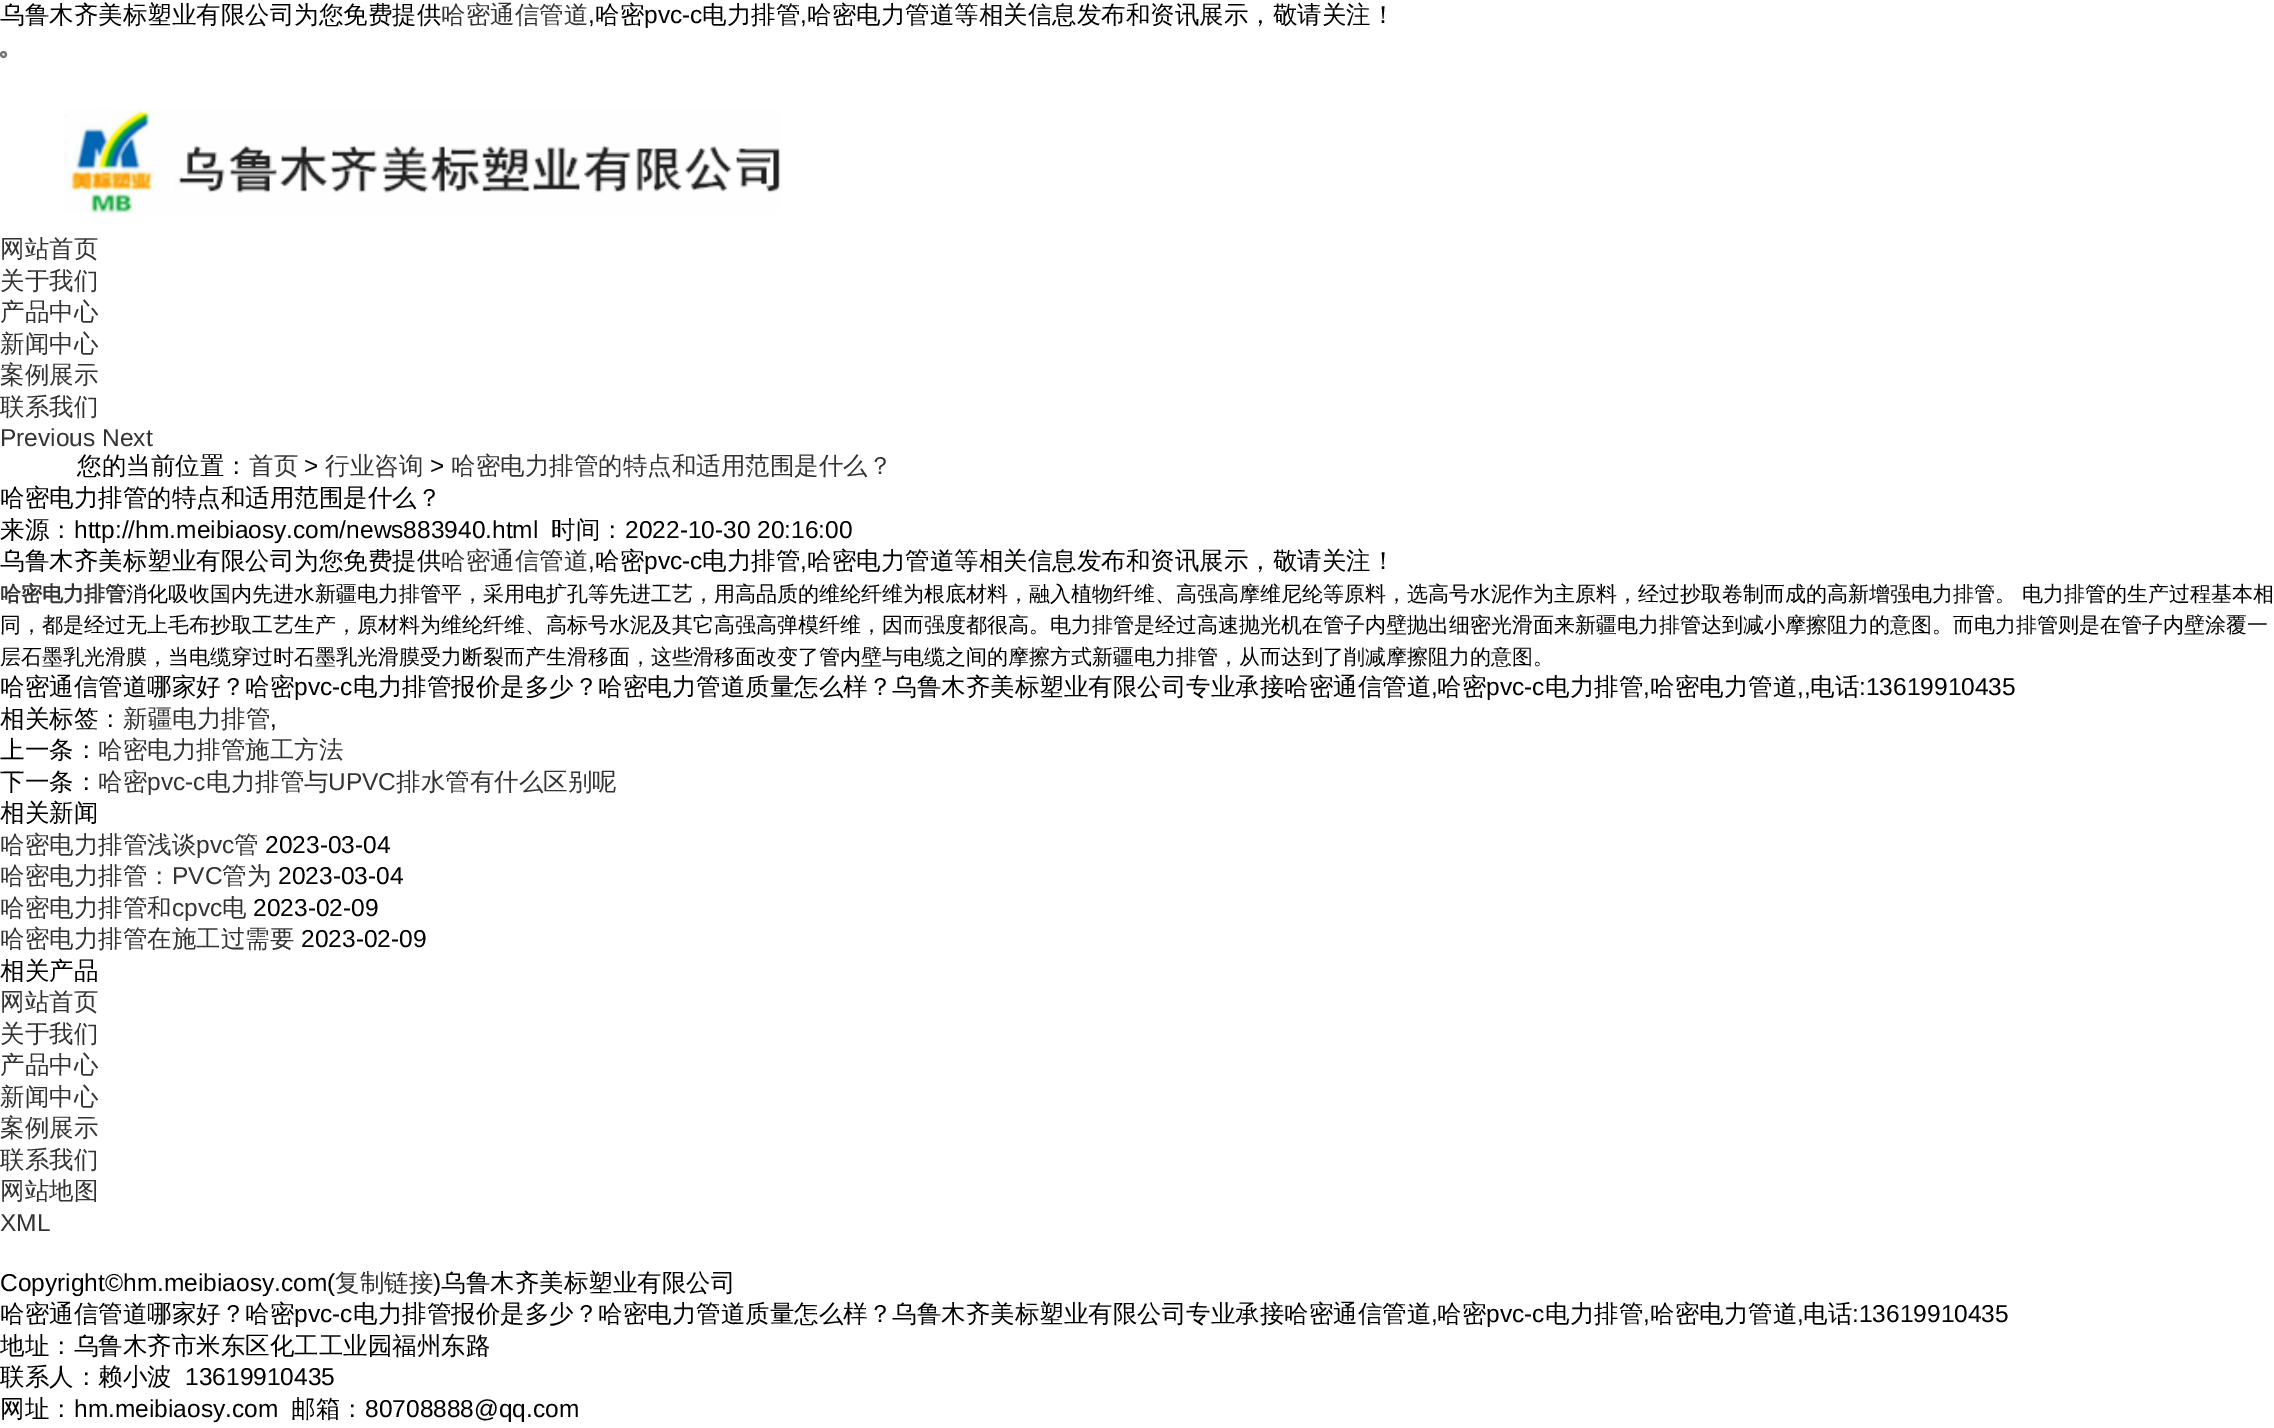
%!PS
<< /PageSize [2274 1428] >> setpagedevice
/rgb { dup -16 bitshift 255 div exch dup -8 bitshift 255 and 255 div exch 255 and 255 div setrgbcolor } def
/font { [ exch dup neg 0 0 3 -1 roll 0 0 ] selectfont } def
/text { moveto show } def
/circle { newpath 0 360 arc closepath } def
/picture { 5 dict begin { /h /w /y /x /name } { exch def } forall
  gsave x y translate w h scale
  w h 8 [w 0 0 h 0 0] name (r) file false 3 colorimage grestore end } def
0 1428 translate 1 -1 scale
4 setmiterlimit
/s1 { /WenQuanYiZenHei-Medium 24.5 font 16#000000 rgb } def
/s2 { /WenQuanYiZenHei-Medium 24.5 font 16#333333 rgb } def
/s3 { /LiberationSans-Regular 24.5 font 16#000000 rgb } def
/s4 { /LiberationSans-Regular 24.5 font 16#333333 rgb } def
/s5 { /WenQuanYiZenHei-Bold 21 font 16#333333 rgb } def
/s6 { /WenQuanYiZenHei-Medium 21 font 16#000000 rgb } def
16#FFFFFF rgb
0 0 2274 1428 rectfill
s1
(乌鲁木齐美标塑业有限公司为您免费提供) 0 23 text
s2
(哈密通信管道) 441 23 text
s3
(,) 588 23 text
s1
(哈密) 595 23 text
s3
(pvc-c) 644 23 text
s1
(电力排管) 702 23 text
s3
(,) 800 23 text
s1
(哈密电力管道等相关信息发布和资讯展示，敬请关注！) 807 23 text
16#EFEFEF rgb
3.5 54.5 2.5 circle gsave fill grestore
16#767676 rgb
2 setlinewidth
stroke
(pic1.raw) 64 109 717 105 picture
s2
(网站首页) 0 257 text
(关于我们) 0 289 text
(产品中心) 0 320 text
(新闻中心) 0 352 text
(案例展示) 0 383 text
(联系我们) 0 415 text
s4
(Previous Next) 0 446 text
s1
(您的当前位置：) 77 474 text
s2
(首页) 249 474 text
s3
(>) 304 474 text
s2
(行业咨询) 325 474 text
s3
(>) 430 474 text
s2
(哈密电力排管的特点和适用范围是什么？) 451 474 text
s1
(哈密电力排管的特点和适用范围是什么？) 0 506 text
(来源：) 0 538 text
s3
(http://hm.meibiaosy.com/news883940.html) 74 538 text
s1
(时间：) 551 538 text
s3
(2022-10-30 20:16:00) 625 538 text
s1
(乌鲁木齐美标塑业有限公司为您免费提供) 0 569 text
s2
(哈密通信管道) 441 569 text
s3
(,) 588 569 text
s1
(哈密) 595 569 text
s3
(pvc-c) 644 569 text
s1
(电力排管) 702 569 text
s3
(,) 800 569 text
s1
(哈密电力管道等相关信息发布和资讯展示，敬请关注！) 807 569 text
s5
(哈密电力排管) 0 601 text
s6
(消化吸收国内先进水新疆电力排管) 126 601 text
(平，采用电扩孔等先进工艺，用高品质的维纶纤维为根底材料，融入植物纤维、高强高摩维尼纶等原料，选高号水泥作为主原料，经过抄取卷制而成的高新增强电力排管。 电力排管的生产过程基本相) 441 601 text
(同，都是经过无上毛布抄取工艺生产，原材料为维纶纤维、高标号水泥及其它高强高弹模纤维，因而强度都很高。电力排管是经过高速抛光机在管子内壁抛出细密光滑面来新疆电力排管达到减小摩擦阻力的意图。而电力排管则是在管子内壁涂覆一) 0 632 text
(层石墨乳光滑膜，当电缆穿过时石墨乳光滑膜受力断裂而产生滑移面，这些滑移面改变了管内壁与电缆之间的摩擦方式新疆电力排管，从而达到了削减摩擦阻力的意图。) 0 664 text
s1
(哈密通信管道哪家好？哈密) 0 695 text
s3
(pvc-c) 294 695 text
s1
(电力排管报价是多少？哈密电力管道质量怎么样？乌鲁木齐美标塑业有限公司专业承接哈密通信管道) 353 695 text
s3
(,) 1431 695 text
s1
(哈密) 1437 695 text
s3
(pvc-c) 1486 695 text
s1
(电力排管) 1545 695 text
s3
(,) 1643 695 text
s1
(哈密电力管道) 1650 695 text
s3
(,,) 1797 695 text
s1
(电话) 1810 695 text
s3
(:13619910435) 1859 695 text
s1
(相关标签：) 0 727 text
s2
(新疆电力排管) 123 727 text
s3
(,) 270 727 text
s1
(上一条：) 0 758 text
s2
(哈密电力排管施工方法) 98 758 text
s1
(下一条：) 0 790 text
s2
(哈密) 98 790 text
s4
(pvc-c) 147 790 text
s2
(电力排管与) 206 790 text
s4
(UPVC) 328 790 text
s2
(排水管有什么区别呢) 396 790 text
s1
(相关新闻) 0 821 text
s2
(哈密电力排管浅谈) 0 853 text
s4
(pvc) 196 853 text
s2
(管) 234 853 text
s3
(2023-03-04) 265 853 text
s2
(哈密电力排管：) 0 884 text
s4
(PVC) 172 884 text
s2
(管为) 222 884 text
s3
(2023-03-04) 278 884 text
s2
(哈密电力排管和) 0 916 text
s4
(cpvc) 172 916 text
s2
(电) 222 916 text
s3
(2023-02-09) 253 916 text
s2
(哈密电力排管在施工过需要) 0 947 text
s3
(2023-02-09) 301 947 text
s1
(相关产品) 0 979 text
s2
(网站首页) 0 1010 text
(关于我们) 0 1042 text
(产品中心) 0 1073 text
(新闻中心) 0 1105 text
(案例展示) 0 1136 text
(联系我们) 0 1168 text
(网站地图) 0 1199 text
s4
(XML) 0 1231 text
s3
(Copyright©hm.meibiaosy.com\() 0 1291 text
s2
(复制链接) 335 1291 text
s3
(\)) 433 1291 text
s1
(乌鲁木齐美标塑业有限公司) 441 1291 text
(哈密通信管道哪家好？哈密) 0 1322 text
s3
(pvc-c) 294 1322 text
s1
(电力排管报价是多少？哈密电力管道质量怎么样？乌鲁木齐美标塑业有限公司专业承接哈密通信管道) 353 1322 text
s3
(,) 1431 1322 text
s1
(哈密) 1437 1322 text
s3
(pvc-c) 1486 1322 text
s1
(电力排管) 1545 1322 text
s3
(,) 1643 1322 text
s1
(哈密电力管道) 1650 1322 text
s3
(,) 1797 1322 text
s1
(电话) 1803 1322 text
s3
(:13619910435) 1852 1322 text
s1
(地址：乌鲁木齐市米东区化工工业园福州东路) 0 1354 text
(联系人：赖小波) 0 1385 text
s3
(13619910435) 185 1385 text
s1
(网址：) 0 1417 text
s3
(hm.meibiaosy.com) 74 1417 text
s1
(邮箱：) 291 1417 text
s3
(80708888@qq.com) 365 1417 text
showpage
